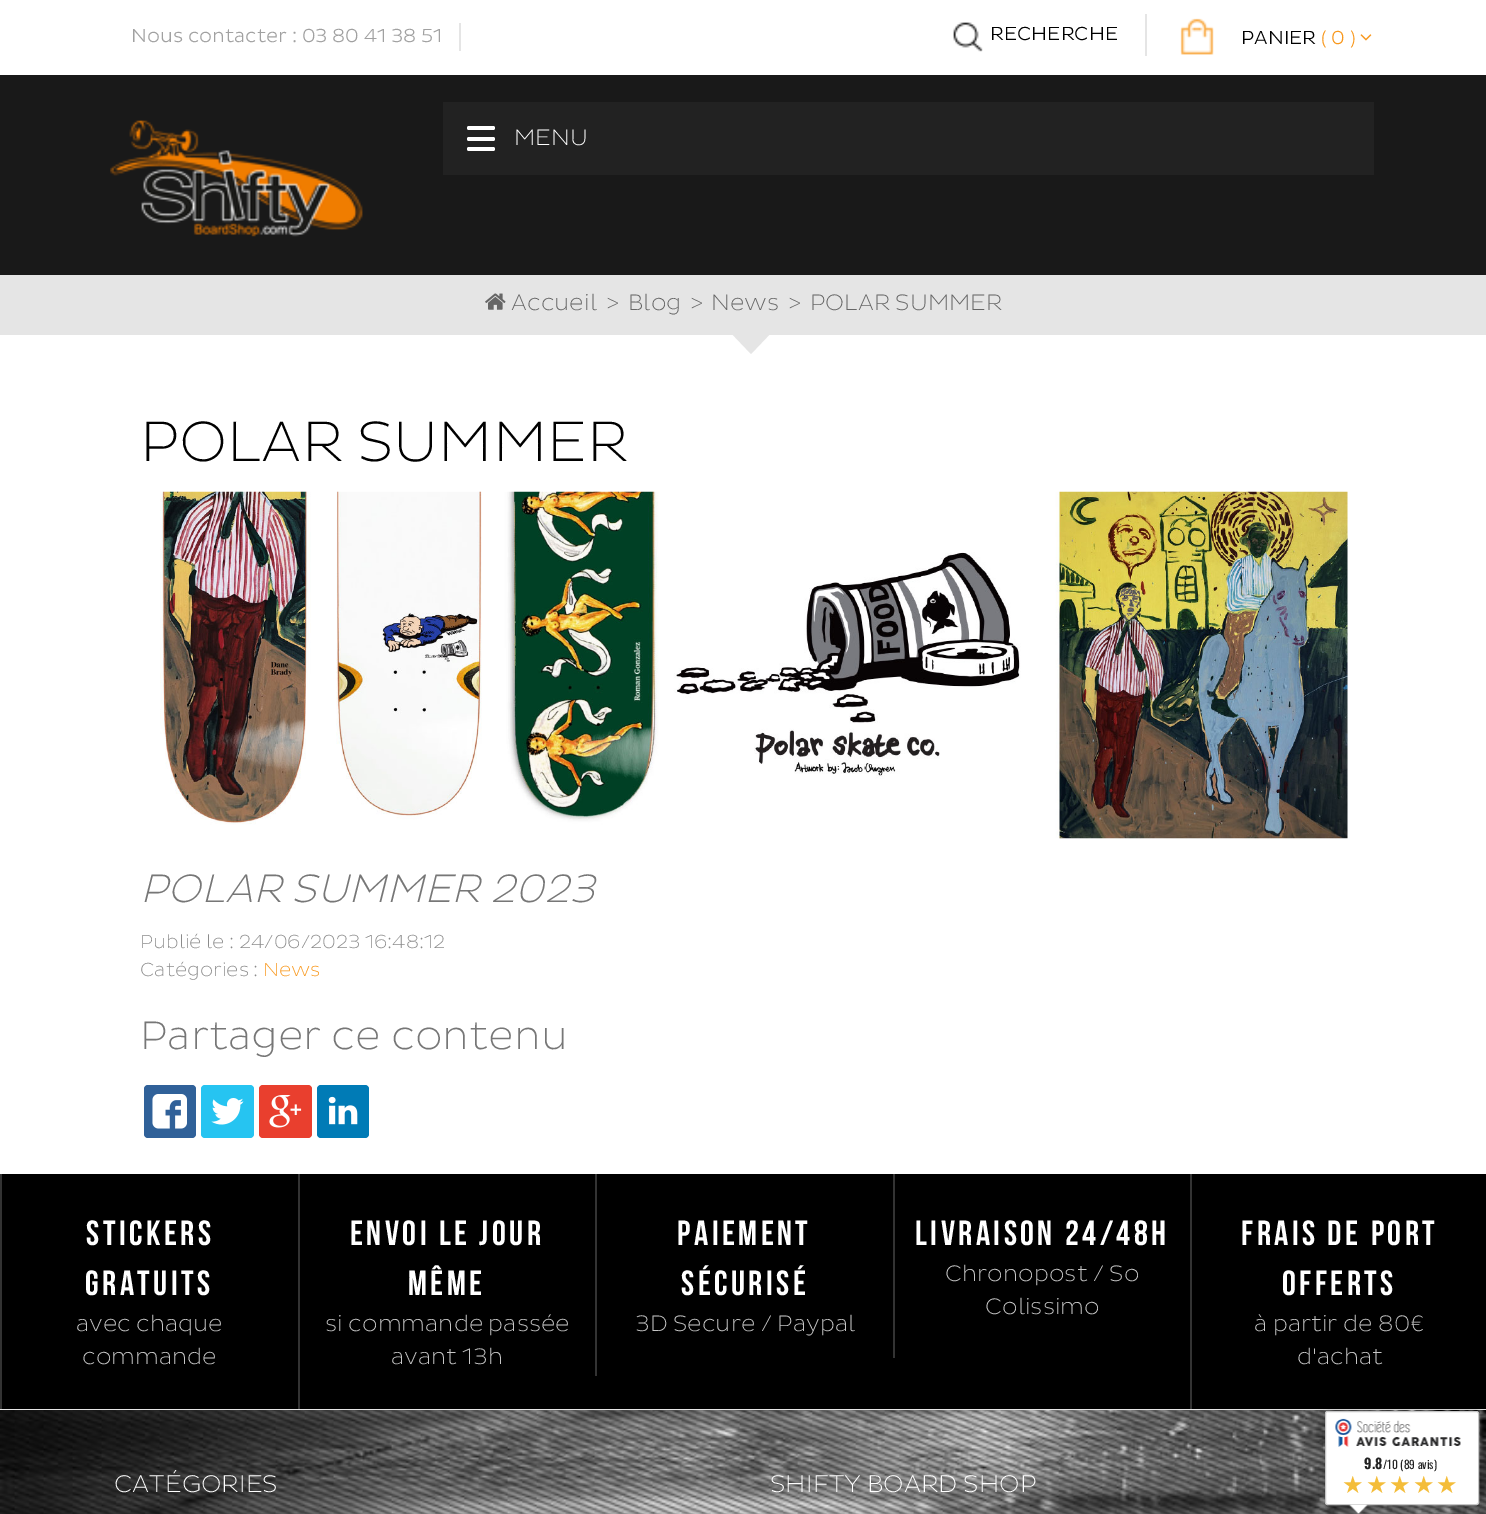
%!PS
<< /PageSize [1486 1514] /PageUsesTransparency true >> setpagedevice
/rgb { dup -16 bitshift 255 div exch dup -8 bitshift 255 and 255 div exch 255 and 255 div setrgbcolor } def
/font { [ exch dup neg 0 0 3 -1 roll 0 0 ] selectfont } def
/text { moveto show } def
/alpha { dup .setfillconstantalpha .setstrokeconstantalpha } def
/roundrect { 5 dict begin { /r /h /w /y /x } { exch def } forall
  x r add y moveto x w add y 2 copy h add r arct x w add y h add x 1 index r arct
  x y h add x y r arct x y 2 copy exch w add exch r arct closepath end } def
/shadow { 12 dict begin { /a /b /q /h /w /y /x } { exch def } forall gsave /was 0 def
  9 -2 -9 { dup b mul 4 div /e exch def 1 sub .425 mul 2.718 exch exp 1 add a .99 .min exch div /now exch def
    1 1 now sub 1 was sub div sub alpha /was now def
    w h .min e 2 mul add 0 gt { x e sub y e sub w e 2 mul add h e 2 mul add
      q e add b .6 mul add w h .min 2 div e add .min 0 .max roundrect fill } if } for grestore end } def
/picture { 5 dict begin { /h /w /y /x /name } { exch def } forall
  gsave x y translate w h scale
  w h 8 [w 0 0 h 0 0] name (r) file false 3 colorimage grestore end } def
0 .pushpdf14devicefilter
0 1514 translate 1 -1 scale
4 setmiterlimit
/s1 { /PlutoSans-Light 19.25 font 16#A1A1A1 rgb } def
/s2 { /PlutoSans-Light 19.25 font 16#000000 rgb } def
/s3 { /PlutoSans-Light 19.25 font 16#F8981D rgb } def
/s4 { /PlutoSans-ExtraLight 22.75 font 16#FFFFFF rgb } def
/s5 { /PlutoSans-ExtraLight 22.75 font 16#666666 rgb } def
/s6 { /PlutoSans-ExtraLight 57.75 font 16#000000 rgb } def
/s7 { /PlutoSans-ExtraLightItalic 40.25 font 16#777777 rgb } def
/s8 { /PlutoSans-ExtraLight 19.25 font 16#8B8B8B rgb } def
/s9 { /PlutoSans-ExtraLight 19.25 font 16#F8981D rgb } def
/s10 { /PlutoSans-ExtraLight 40.25 font 16#777777 rgb } def
/s11 { /PlutoSans-ExtraLight 22.75 font 16#C6C6C6 rgb } def
/s12 { /PlutoSans-ExtraLight 24.5 font 16#FFFFFF rgb } def
/s13 { /Oswald-Bold 14 font 16#222222 rgb } def
/s14 { /Oswald-Regular 11.5 font 16#222222 rgb } def
16#FFFFFF rgb
0 0 1486 1514 rectfill
s1
(Nous contacter : 03 80 41 38 51) 131 42 text
16#E5E5E5 rgb
459 23 2 28 rectfill
(pic1.raw) 953 22 30 30 picture
1145 14 2 42 rectfill
s2
(RECHERCHE) 990 40 text
(pic2.raw) 1180 18 34 37 picture
(PANIER) 1241 44 text
s3
(\( 0 \)) 1321 44 text
(pic3.raw) 1360 34 12 7 picture
16#191919 rgb
0 75 1486 200 rectfill
(pic4.raw) 110 120 253 117 picture
16#222222 rgb
443 102 931 73 rectfill
16#FFFFFF rgb
467 126 28 4 2 roundrect fill
467 137 28 4 2 roundrect fill
s4
(MENU) 514 145 text
467 147 28 4 2 roundrect fill
16#E5E5E5 rgb
0 275 1486 60 rectfill
(pic5.raw) 485 293 21 17 picture
s5
(Accueil) 511 310 text
(>) 606 310 text
(Blog) 628 310 text
(>) 690 310 text
(News) 711 310 text
(>) 788 310 text
(POLAR SUMMER) 810 310 text
16#E5E5E5 rgb
730 332 moveto 772 332 lineto 751 354 lineto closepath fill
s6
(POLAR SUMMER) 140 461 text
(pic6.raw) 160 491 1188 348 picture
s7
(POLAR SUMMER 2023) 140 902 text
s8
(Publié le : 24/06/2023 16:48:12) 140 948 text
(Catégories :) 140 976 text
s9
(News) 263 976 text
s10
(Partager ce contenu) 140 1049 text
16#306199 rgb
144 1085 52 53 4 roundrect fill
(pic7.raw) 152 1094 35 35 picture
16#26C4F1 rgb
201 1085 53 53 4 roundrect fill
(pic8.raw) 211 1098 33 27 picture
16#E93F2E rgb
259 1085 53 53 4 roundrect fill
(pic9.raw) 269 1095 33 33 picture
16#007BB6 rgb
317 1085 52 53 4 roundrect fill
(pic10.raw) 328 1096 30 29 picture
16#000000 rgb
2 1174 1484 235 rectfill
16#333333 rgb
0 1174 2 235 rectfill
/BebasNeue-Bold 35 font
16#FFFFFF rgb
86 1245 moveto 3.5 0 (STICKERS) ashow
85 1295 moveto 3.5 0 (GRATUITS) ashow
s11
(avec chaque) 76 1331 text
(commande) 82 1364 text
16#333333 rgb
298 1174 2 235 rectfill
/BebasNeue-Bold 35 font
16#FFFFFF rgb
350 1245 moveto 3.5 0 (ENVOI LE JOUR) ashow
408 1295 moveto 3.5 0 (MÊME) ashow
s11
(si commande passée) 325 1331 text
(avant 13h) 391 1364 text
16#333333 rgb
595 1174 2 202 rectfill
/BebasNeue-Bold 35 font
16#FFFFFF rgb
677 1245 moveto 3.5 0 (PAIEMENT) ashow
681 1295 moveto 3.5 0 (SÉCURISÉ) ashow
s11
(3D Secure / Paypal) 635 1331 text
16#333333 rgb
893 1174 2 184 rectfill
/BebasNeue-Bold 35 font
16#FFFFFF rgb
915 1245 moveto 3.5 0 (LIVRAISON 24/48H) ashow
s11
(Chronopost / So) 945 1281 text
(Colissimo) 985 1314 text
16#333333 rgb
1190 1174 2 235 rectfill
/BebasNeue-Bold 35 font
16#FFFFFF rgb
1241 1245 moveto 3.5 0 (FRAIS DE PORT) ashow
1282 1295 moveto 3.5 0 (OFFERTS) ashow
s11
(à partir de 80€) 1254 1331 text
(d'achat) 1297 1364 text
16#E5E5E5 rgb
0 1409 1486 1 rectfill
(pic11.raw) 0 1410 1486 104 picture
s12
(CATÉGORIES) 114 1492 text
(SHIFTY BOARD SHOP) 770 1492 text
16#000000 rgb
1325 1412 154 97 2.5 4 0.25 shadow
16#FFFFFF rgb
1325.5 1411.5 153 93 2 roundrect gsave fill grestore
16#C5C5C5 rgb
stroke
(pic12.raw) 1335 1418 126 29 picture
s13
(9.8) 1364 1469 text
s14
(/10 \(89 avis\)) 1383 1469 text
/DejaVuSans-Regular 24 font
16#F4BD3A rgb
1342 1493 moveto 2 0 (★★★★★) ashow
(pic13.raw) 1349 1504 19 10 picture
.poppdf14devicefilter showpage
